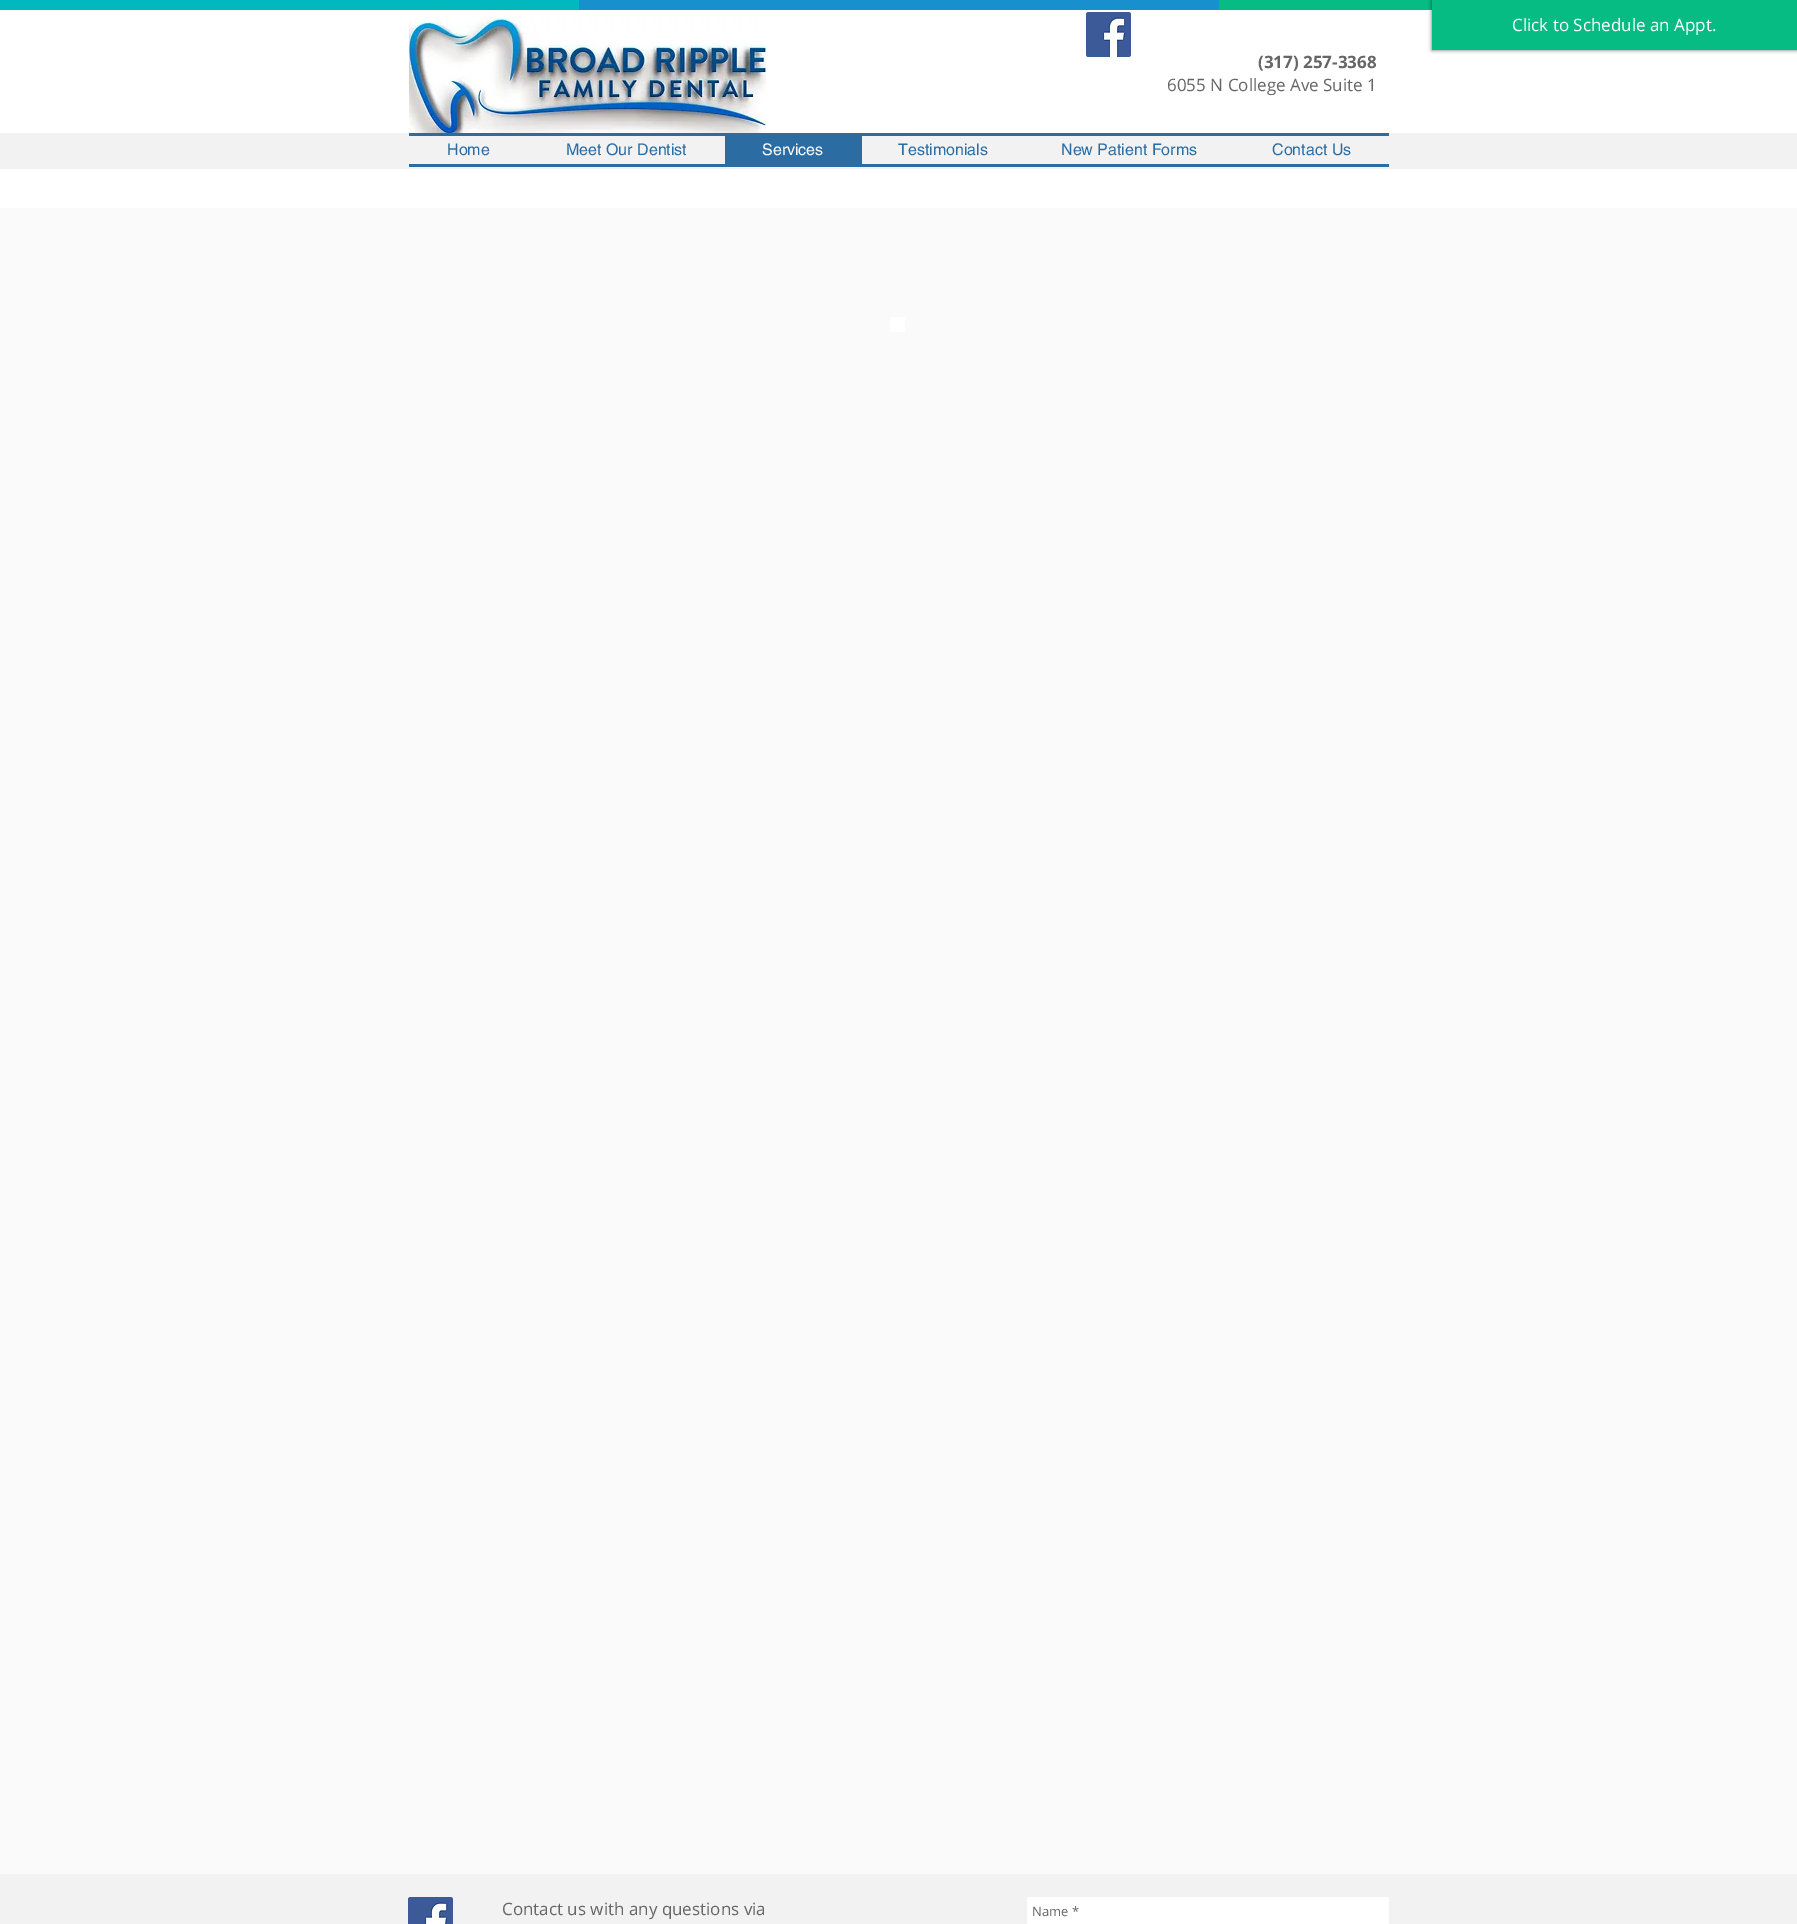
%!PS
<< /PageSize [1797 1924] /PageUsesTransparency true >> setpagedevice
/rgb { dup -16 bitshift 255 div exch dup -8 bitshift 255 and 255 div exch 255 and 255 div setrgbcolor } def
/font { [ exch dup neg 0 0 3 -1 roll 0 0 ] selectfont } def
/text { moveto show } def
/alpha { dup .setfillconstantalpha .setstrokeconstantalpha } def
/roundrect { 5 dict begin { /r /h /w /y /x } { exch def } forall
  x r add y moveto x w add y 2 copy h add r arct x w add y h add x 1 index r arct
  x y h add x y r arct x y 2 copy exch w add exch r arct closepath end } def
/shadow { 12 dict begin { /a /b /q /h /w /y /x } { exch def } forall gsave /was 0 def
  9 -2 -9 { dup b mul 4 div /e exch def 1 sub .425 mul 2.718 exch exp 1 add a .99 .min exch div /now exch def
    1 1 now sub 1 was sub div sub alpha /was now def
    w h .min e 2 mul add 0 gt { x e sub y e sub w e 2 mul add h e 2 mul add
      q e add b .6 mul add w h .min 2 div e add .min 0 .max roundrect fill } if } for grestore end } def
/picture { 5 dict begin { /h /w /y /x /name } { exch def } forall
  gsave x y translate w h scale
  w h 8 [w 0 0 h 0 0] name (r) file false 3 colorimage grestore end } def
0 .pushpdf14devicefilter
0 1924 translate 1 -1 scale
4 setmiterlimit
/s1 { /OpenSans-Regular 17 font 16#FFFFFF rgb } def
/s2 { /OpenSans-Bold 17 font 16#666666 rgb } def
/s3 { /OpenSans-Regular 17 font 16#666666 rgb } def
/s4 { /helvetica-Regular 16 font 16#2B6CA3 rgb } def
/s5 { /helvetica-Regular 16 font 16#FFFFFF rgb } def
/s6 { /OpenSans-Regular 13 font 16#666666 rgb } def
16#FFFFFF rgb
0 0 1797 1924 rectfill
16#07BC83 rgb
1219 0 213 10 rectfill
16#000000 rgb
1432 0 365 50 0 2 0.6 shadow
16#07BC83 rgb
1432 0 365 50 rectfill
s1
(Click to Schedule an Appt.) 1512 31 text
16#02B8BF rgb
0 0 579 10 rectfill
16#1990CE rgb
579 0 640 10 rectfill
(pic1.raw) 409 13 357 120 picture
(pic2.raw) 1086 12 45 45 picture
s2
(\(317\) 257-3368) 1258 68 text
s3
(6055 N College Ave Suite 1) 1167 91 text
16#F2F2F2 rgb
0 133 1797 36 rectfill
16#2B6CA3 rgb
409 133 980 3 rectfill
409 164 980 3 rectfill
s4
(Home) 447 155 text
(Meet Our Dentist) 566 155 text
725 136 137 28 rectfill
s5
(Services) 762 155 text
s4
(Testimonials) 898 155 text
(New Patient Forms) 1061 155 text
(Contact Us) 1272 155 text
16#FAFAFA rgb
0 208 1797 1666 rectfill
16#FFFFFF rgb
890 317 15 15 rectfill
16#F2F2F2 rgb
0 1874 1797 50 rectfill
(pic3.raw) 408 1897 45 27 picture
s3
(Contact us with any questions via) 502 1915 text
16#FFFFFF rgb
1027 1897 362 27 rectfill
s6
(Name *) 1032 1916 text
.poppdf14devicefilter showpage
